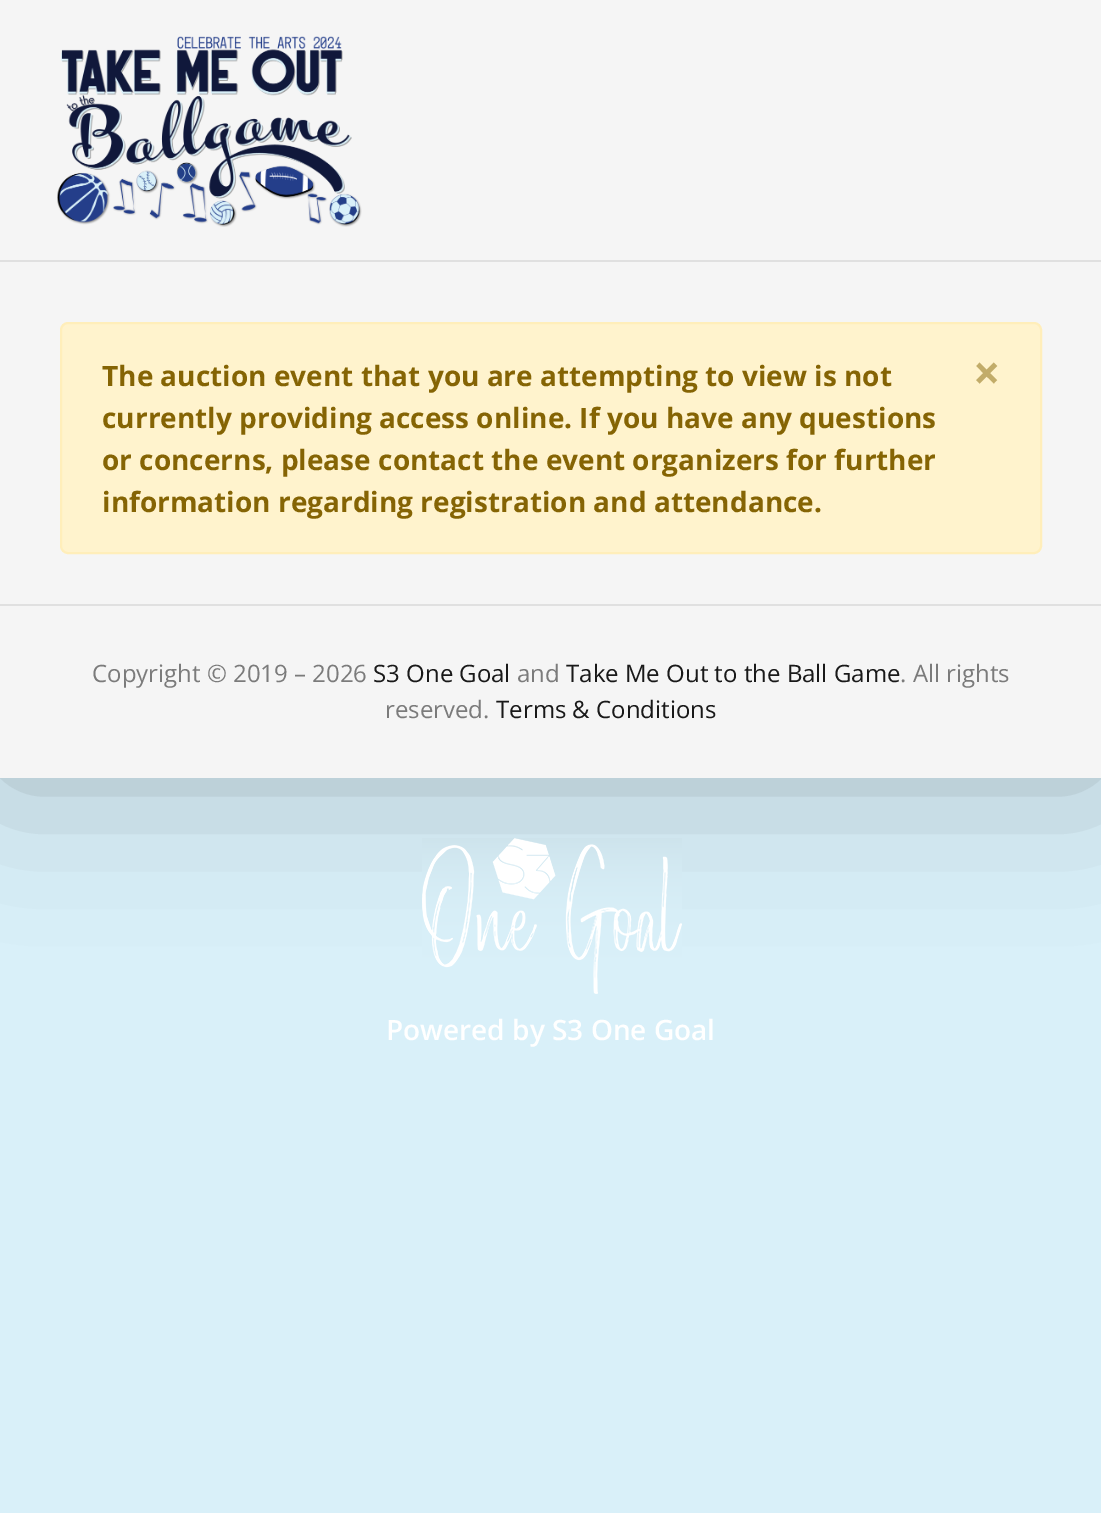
%!PS
<< /PageSize [1101 1513] /PageUsesTransparency true >> setpagedevice
/rgb { dup -16 bitshift 255 div exch dup -8 bitshift 255 and 255 div exch 255 and 255 div setrgbcolor } def
/font { [ exch dup neg 0 0 3 -1 roll 0 0 ] selectfont } def
/text { moveto show } def
/alpha { dup .setfillconstantalpha .setstrokeconstantalpha } def
/roundrect { 5 dict begin { /r /h /w /y /x } { exch def } forall
  x r add y moveto x w add y 2 copy h add r arct x w add y h add x 1 index r arct
  x y h add x y r arct x y 2 copy exch w add exch r arct closepath end } def
/shadow { 12 dict begin { /a /b /q /h /w /y /x } { exch def } forall gsave /was 0 def
  9 -2 -9 { dup b mul 4 div /e exch def 1 sub .425 mul 2.718 exch exp 1 add a .99 .min exch div /now exch def
    1 1 now sub 1 was sub div sub alpha /was now def
    w h .min e 2 mul add 0 gt { x e sub y e sub w e 2 mul add h e 2 mul add
      q e add b .6 mul add w h .min 2 div e add .min 0 .max roundrect fill } if } for grestore end } def
/picture { 5 dict begin { /h /w /y /x /name } { exch def } forall
  gsave x y translate w h scale
  w h 8 [w 0 0 h 0 0] name (r) file false 3 colorimage grestore end } def
0 .pushpdf14devicefilter
0 1513 translate 1 -1 scale
4 setmiterlimit
/s1 { /OpenSans-Bold 28 font 16#856404 rgb } def
/s2 { /OpenSans-Bold 48 font 16#C2AC69 rgb } def
/s3 { /OpenSans-Regular 24 font 16#7B7B7B rgb } def
/s4 { /OpenSans-Regular 24 font 16#191919 rgb } def
/s5 { /OpenSans-SemiBold 28 font 16#FFFFFF rgb } def
16#D9F0F9 rgb
0 0 1101 1513 rectfill
16#000000 rgb
0 0 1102 778 0 75 0.25 shadow
16#F5F5F5 rgb
0 0 1101 778 rectfill
16#E0E0E0 rgb
0 260 1101 2 rectfill
(pic1.raw) 57 36 305 191 picture
16#FFF3CD rgb
61 323 980 230 7 roundrect gsave fill grestore
16#FFEEBA rgb
2 setlinewidth
stroke
s1
(The auction event that you are attempting to view is not) 102 386 text
(currently providing access online. If you have any questions) 102 428 text
(or concerns, please contact the event organizers for further) 102 470 text
(information regarding registration and attendance.) 102 512 text
s2
(×) 973 390 text
16#E0E0E0 rgb
0 604 1101 2 rectfill
s3
(Copyright © 2019 – 2026) 92 682 text
s4
(S3 One Goal) 373 682 text
s3
(and) 517 682 text
s4
(Take Me Out to the Ball Game) 566 682 text
s3
(. All rights) 900 682 text
(reserved.) 385 718 text
s4
(Terms & Conditions) 496 718 text
(pic2.raw) 422 838 260 156 picture
s5
(Powered by S3 One Goal) 386 1040 text
.poppdf14devicefilter showpage
